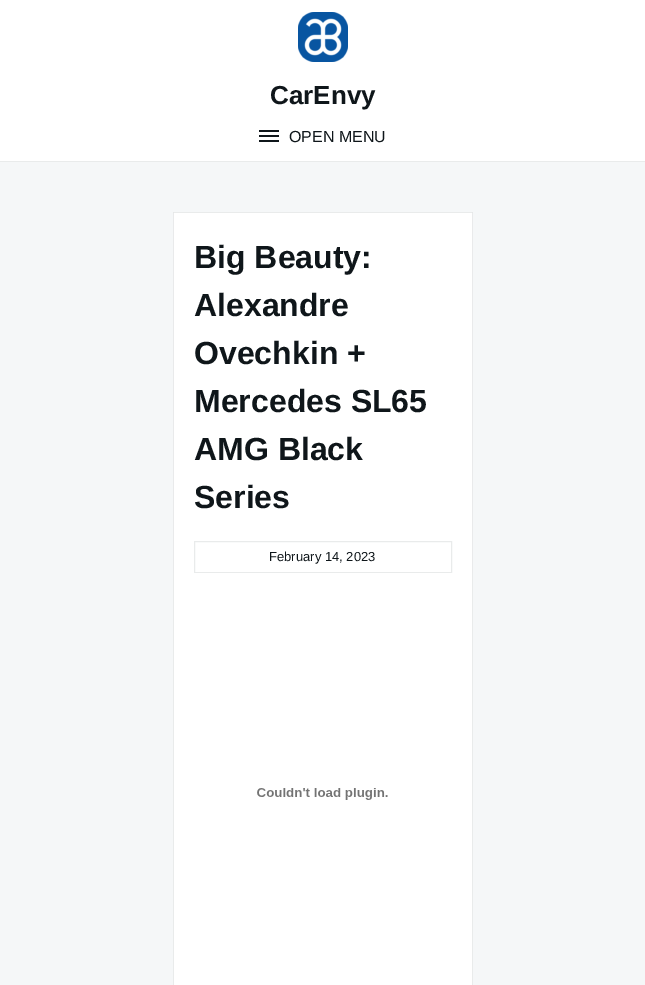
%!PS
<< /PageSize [645 985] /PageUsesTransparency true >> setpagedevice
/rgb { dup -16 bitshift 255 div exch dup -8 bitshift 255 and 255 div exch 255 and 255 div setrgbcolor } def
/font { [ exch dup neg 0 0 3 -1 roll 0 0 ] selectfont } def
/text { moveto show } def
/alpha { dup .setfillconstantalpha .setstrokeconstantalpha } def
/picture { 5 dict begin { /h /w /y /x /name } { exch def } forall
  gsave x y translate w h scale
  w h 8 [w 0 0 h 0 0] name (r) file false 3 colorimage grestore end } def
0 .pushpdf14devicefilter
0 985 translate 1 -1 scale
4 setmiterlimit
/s1 { /LiberationSans-Bold 26 font 16#0F161A rgb } def
/s2 { /LiberationSans-Regular 16 font 16#0F161A rgb } def
/s3 { /LiberationSans-Bold 32 font 16#0F161A rgb } def
/s4 { /LiberationSans-Regular 13 font 16#0F161A rgb } def
16#F5F7F8 rgb
0 0 645 985 rectfill
16#FFFFFF rgb
0 0 645 161 rectfill
16#E9EBEB rgb
0 161 645 1 rectfill
(pic1.raw) 298 12 50 50 picture
s1
(CarEnvy) 270 104 text
259 130 20 2 rectfill
259 135 20 2 rectfill
259 140 20 2 rectfill
s2
(OPEN MENU) 289 142 text
16#FFFFFF rgb
173 212 300 361 rectfill
16#E9EBEB rgb
173 212 moveto 473 212 lineto 472 213 lineto 174 213 lineto closepath fill
0.1 alpha
16#263238 rgb
473 212 moveto 473 573 lineto 472 573 lineto 472 213 lineto closepath fill
173 573 moveto 173 212 lineto 174 213 lineto 174 573 lineto closepath fill
1 alpha
s3
(Big Beauty:) 194 268 text
(Alexandre) 194 316 text
(Ovechkin +) 194 364 text
(Mercedes SL65) 194 412 text
(AMG Black) 194 460 text
(Series) 194 508 text
16#E9EBEB rgb
194.5 541.5 257 31 rectstroke
s4
(February 14, 2023) 269 561 text
16#FFFFFF rgb
174 573 298 412 rectfill
16#E9EBEB rgb
472 573 1 412 rectfill
173 573 1 412 rectfill
(pic2.raw) 257 788 131 12 picture
.poppdf14devicefilter showpage
